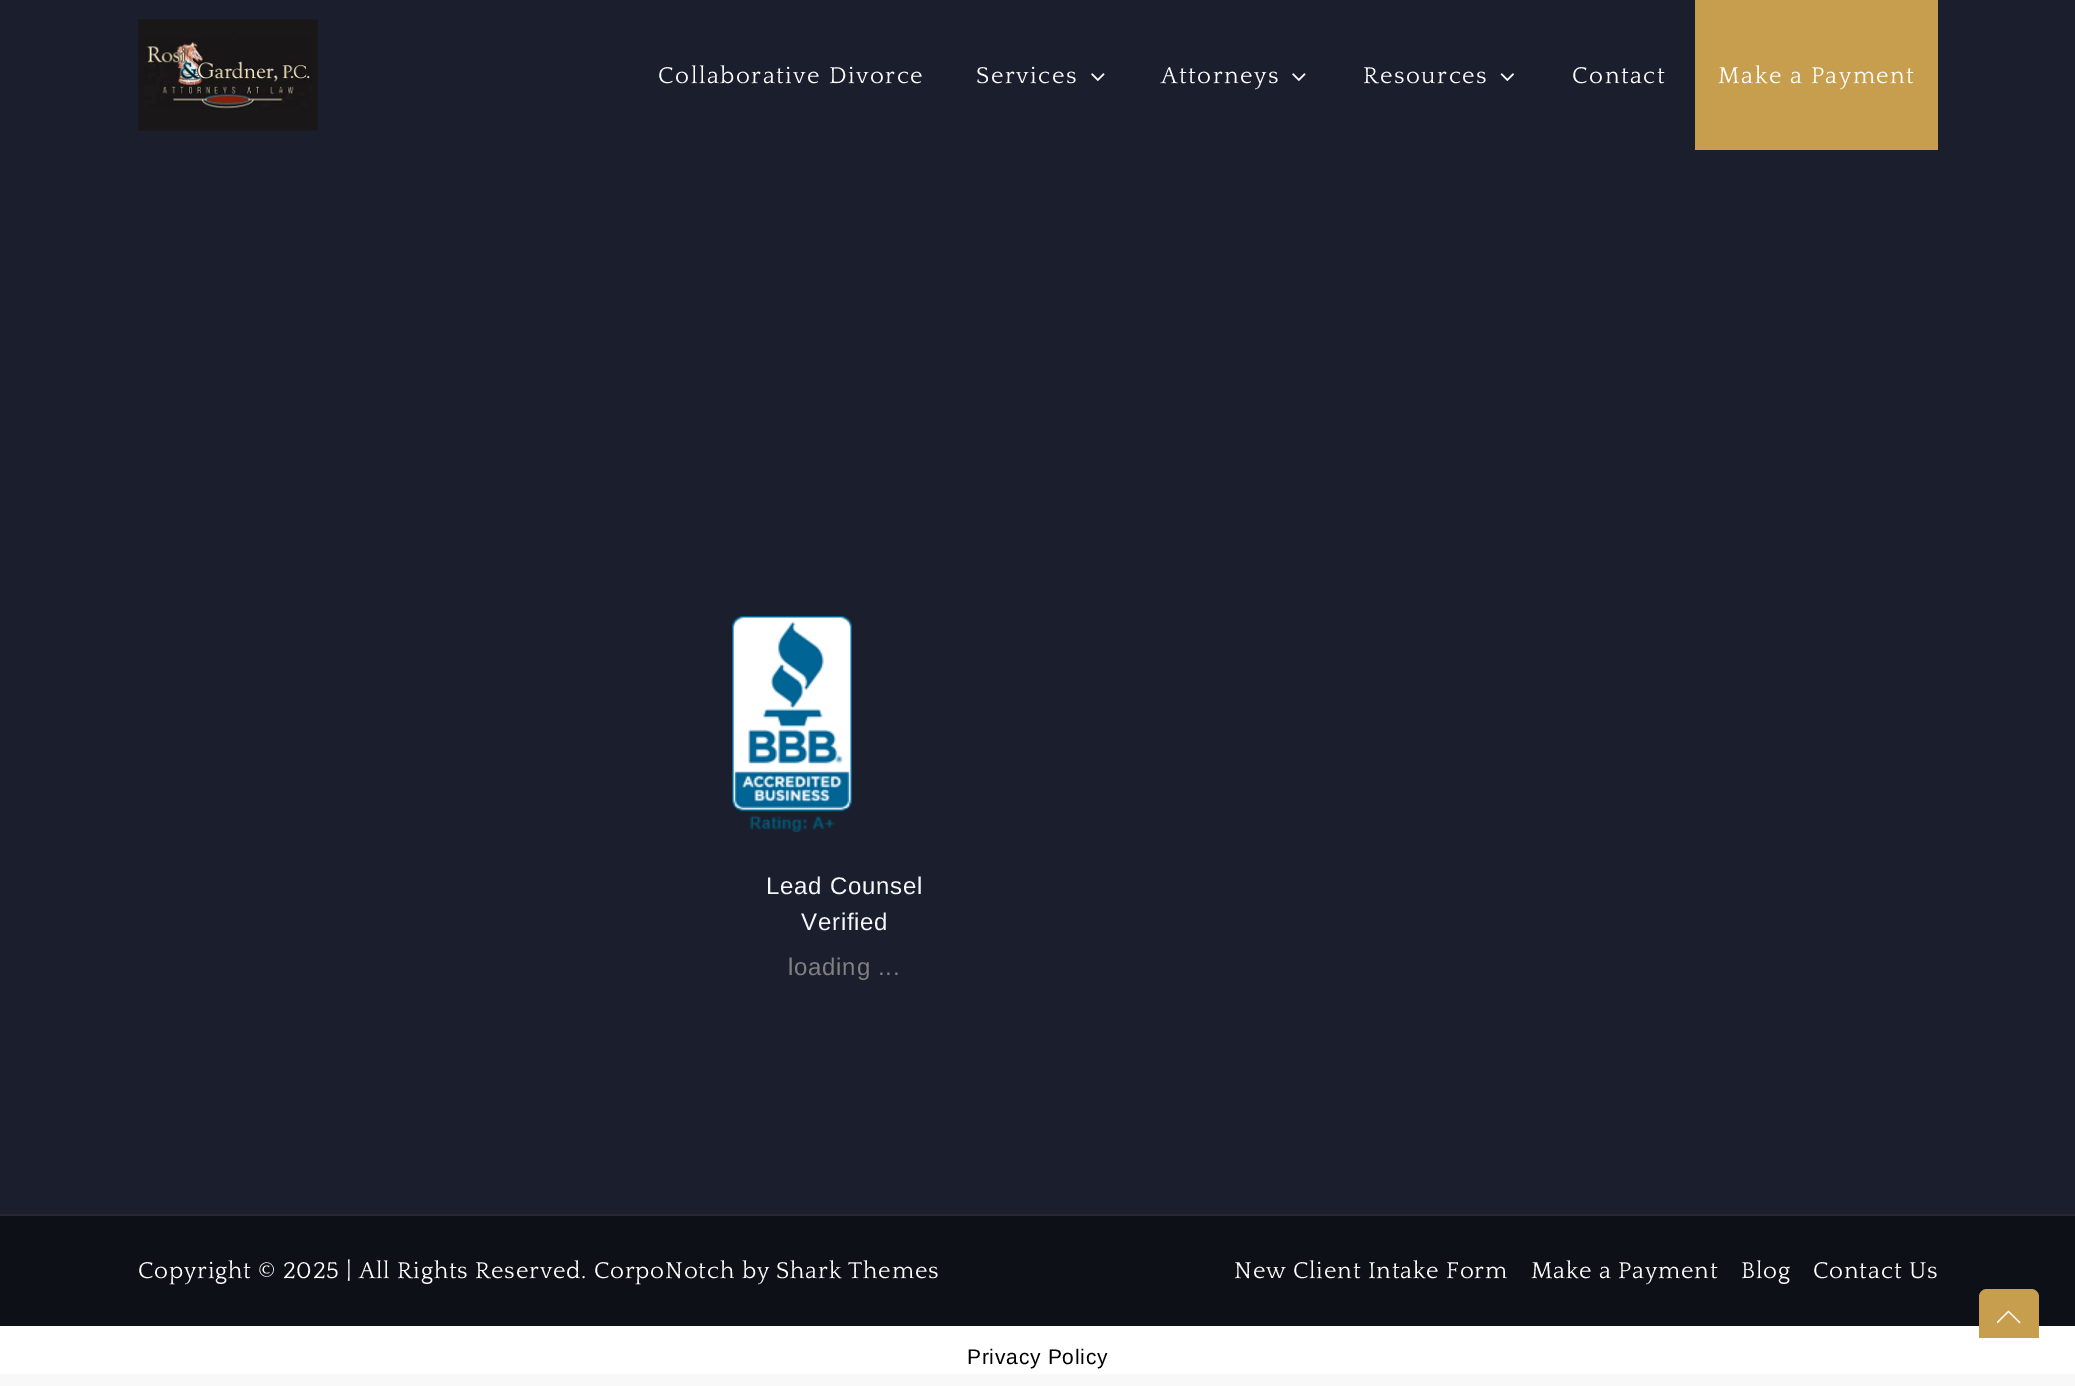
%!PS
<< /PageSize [2075 1386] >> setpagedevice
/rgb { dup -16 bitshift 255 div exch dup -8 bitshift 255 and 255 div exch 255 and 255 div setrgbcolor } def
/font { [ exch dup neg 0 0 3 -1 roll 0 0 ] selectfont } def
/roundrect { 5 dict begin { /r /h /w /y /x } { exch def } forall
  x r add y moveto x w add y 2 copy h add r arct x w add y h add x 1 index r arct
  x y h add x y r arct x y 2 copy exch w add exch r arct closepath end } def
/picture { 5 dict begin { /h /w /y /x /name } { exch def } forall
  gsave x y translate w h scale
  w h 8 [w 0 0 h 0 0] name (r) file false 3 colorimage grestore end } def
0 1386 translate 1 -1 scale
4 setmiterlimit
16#F8F8F8 rgb
0 0 2075 1386 rectfill
16#FFFFFF rgb
0 1326 2075 12 rectfill
16#1B1F2D rgb
0 0 2075 1214 rectfill
(pic1.raw) 138 19 180 112 picture
/Quattrocento-Regular 24 font
16#FFFFFF rgb
658 83 moveto 1.5 0 (Collaborative Divorce) ashow
976 83 moveto 1.5 0 (Services) ashow
(pic2.raw) 1091 73 14 8 picture
1161 83 moveto 1.5 0 (Attorneys) ashow
(pic2.raw) 1292 73 14 8 picture
1363 83 moveto 1.5 0 (Resources) ashow
(pic3.raw) 1500 73 14 8 picture
1572 83 moveto 1.5 0 (Contact) ashow
16#C69E4D rgb
1695 0 243 150 rectfill
16#FFFFFF rgb
1718 83 moveto 1.5 0 (Make a Payment) ashow
(pic4.raw) 732 616 120 216 picture
/LiberationSans-Regular 24 font
16#F6F7FB rgb
766 894 moveto 0.75 0 (Lead Counsel) ashow
801 930 moveto 0.75 0 (Verified) ashow
16#808080 rgb
788 975 moveto 0.75 0 (loading ...) ashow
16#0E1017 rgb
0 1216 2075 110 rectfill
16#26282E rgb
0 1214 2075 2 rectfill
/Quattrocento-Regular 24 font
16#FFFFFF rgb
138 1278 moveto 0.75 0 (Copyright © 2025 | All Rights Reserved. CorpoNotch by Shark Themes) ashow
1234 1278 moveto 0.75 0 (New Client Intake Form) ashow
1531 1278 moveto 0.75 0 (Make a Payment) ashow
1741 1278 moveto 0.75 0 (Blog) ashow
1813 1278 moveto 0.75 0 (Contact Us) ashow
16#C69E4D rgb
1979 1289 60 60 8 roundrect fill
(pic5.raw) 1997 1310 24 14 picture
16#FFFFFF rgb
0 1338 2075 36 rectfill
/LiberationSans-Regular 21 font
16#000000 rgb
967 1364 moveto 0.75 0 (Privacy Policy) ashow
showpage
